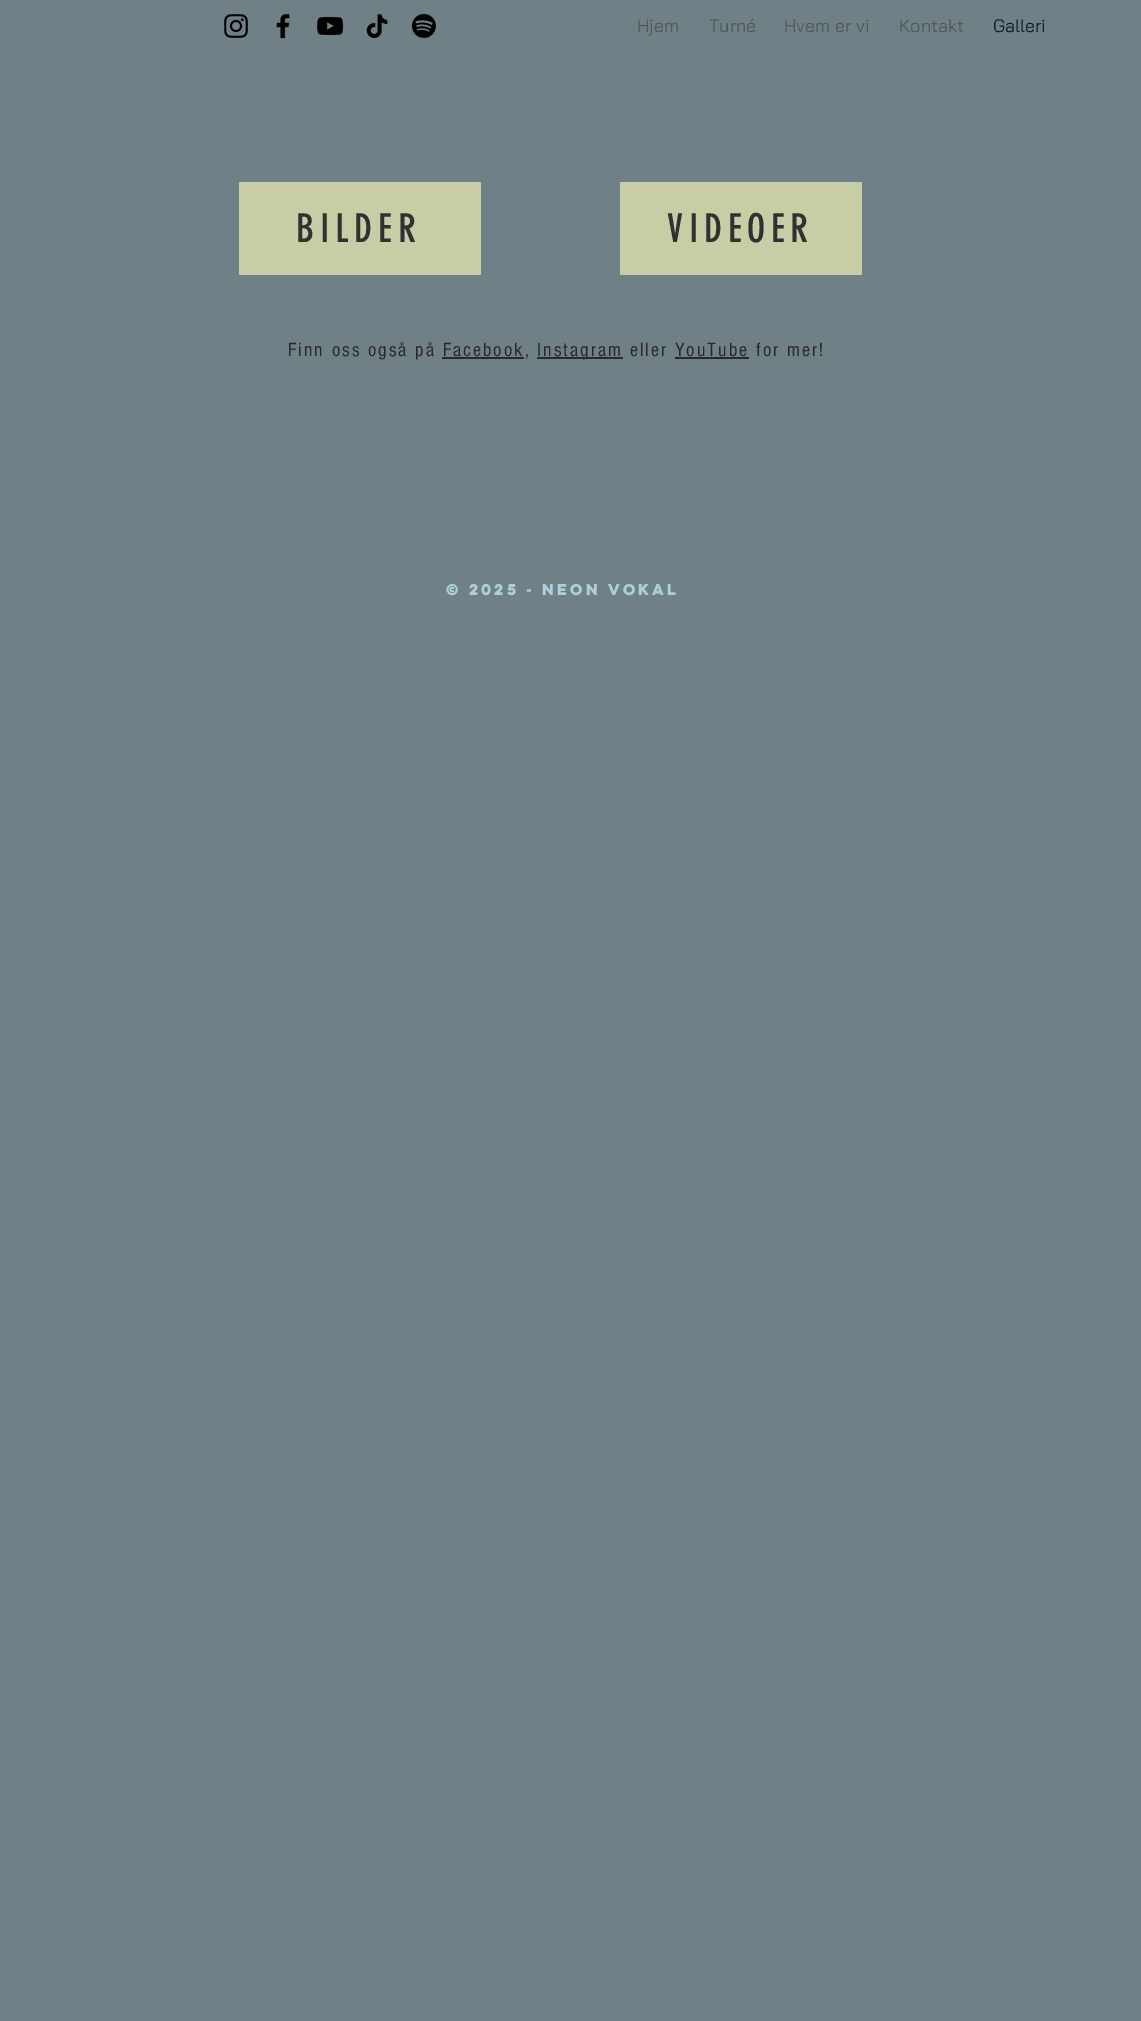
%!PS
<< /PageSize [1141 2021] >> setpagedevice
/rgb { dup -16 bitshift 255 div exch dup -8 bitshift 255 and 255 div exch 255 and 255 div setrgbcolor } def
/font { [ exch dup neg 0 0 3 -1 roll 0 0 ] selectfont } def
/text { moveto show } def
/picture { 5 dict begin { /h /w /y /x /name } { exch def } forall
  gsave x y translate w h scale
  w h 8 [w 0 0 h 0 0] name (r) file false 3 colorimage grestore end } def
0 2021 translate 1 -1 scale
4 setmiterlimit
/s1 { /BaiJamjuree-Regular 18 font 16#50595B rgb } def
/s2 { /BaiJamjuree-Regular 18 font 16#092326 rgb } def
/s3 { /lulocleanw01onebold-Bold 14 font 16#ADCFDA rgb } def
16#6F8086 rgb
0 0 1141 2021 rectfill
(pic1.raw) 224 14 24 24 picture
(pic2.raw) 276 14 14 25 picture
(pic3.raw) 317 16 27 20 picture
(pic4.raw) 366 14 22 25 picture
(pic5.raw) 411 13 25 26 picture
s1
(Hjem) 637 32 text
(Turné) 709 32 text
(Hvem er vi) 784 32 text
(Kontakt) 899 32 text
s2
(Galleri) 993 32 text
16#C7CEA6 rgb
239 182 242 93 rectfill
/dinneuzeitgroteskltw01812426-Regular 39 font
16#313131 rgb
296 242 moveto 5.75 0 (BILDER) ashow
16#C7CEA6 rgb
620 182 242 93 rectfill
16#313131 rgb
667 242 moveto 5.75 0 (VIDEOER) ashow
/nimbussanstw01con-Regular 20 font
16#292929 rgb
288 356 moveto 2 0 (Finn oss også på Facebook,) ashow
442 357 82 2 rectfill
537 357 86 2 rectfill
537 356 moveto 2 0 (Instagram eller YouTube for mer!) ashow
675 357 74 2 rectfill
s3
(© 2025 - Neon Vokal) 446 595 text
showpage
